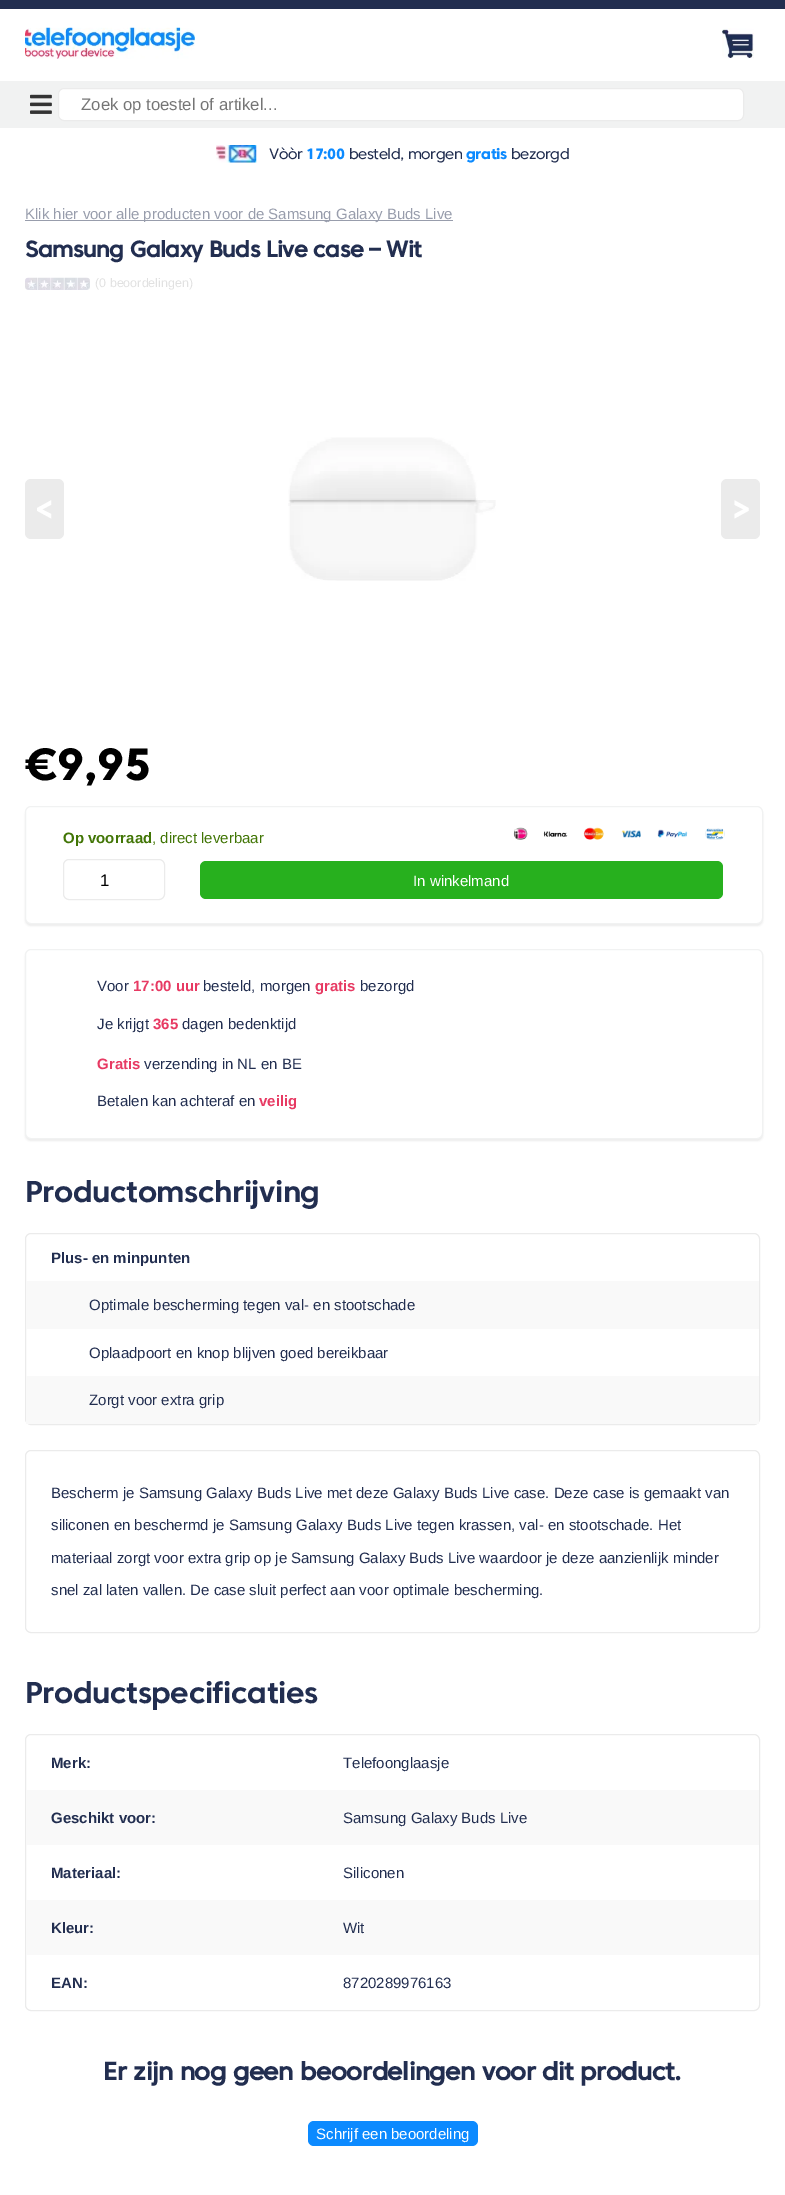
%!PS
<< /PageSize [785 2195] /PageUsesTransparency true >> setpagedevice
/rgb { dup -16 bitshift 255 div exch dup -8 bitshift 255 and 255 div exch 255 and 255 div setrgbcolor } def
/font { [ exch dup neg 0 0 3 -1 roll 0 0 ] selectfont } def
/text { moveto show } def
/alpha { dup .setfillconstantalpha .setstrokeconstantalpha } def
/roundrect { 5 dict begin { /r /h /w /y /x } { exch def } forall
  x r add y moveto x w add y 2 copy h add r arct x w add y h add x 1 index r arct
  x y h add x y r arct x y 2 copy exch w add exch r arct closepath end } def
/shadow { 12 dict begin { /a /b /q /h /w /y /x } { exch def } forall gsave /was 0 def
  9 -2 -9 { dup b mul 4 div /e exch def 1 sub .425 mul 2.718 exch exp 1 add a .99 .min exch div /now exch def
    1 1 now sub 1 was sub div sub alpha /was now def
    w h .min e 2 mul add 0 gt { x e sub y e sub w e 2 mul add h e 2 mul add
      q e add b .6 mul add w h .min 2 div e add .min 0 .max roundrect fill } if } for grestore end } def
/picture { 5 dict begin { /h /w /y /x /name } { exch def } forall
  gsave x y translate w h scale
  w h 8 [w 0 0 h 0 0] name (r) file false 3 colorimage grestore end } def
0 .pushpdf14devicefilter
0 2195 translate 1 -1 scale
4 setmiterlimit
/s1 { /LiberationSans-Regular 16.75 font 16#757575 rgb } def
/s2 { /LiberationSans-Regular 15 font 16#989DAC rgb } def
/s3 { /LiberationSans-Regular 12.5 font 16#E1E1E1 rgb } def
/s4 { /LiberationSans-Bold 15 font 16#417505 rgb } def
/s5 { /LiberationSans-Regular 15 font 16#417505 rgb } def
/s6 { /LiberationSans-Regular 16.75 font 16#000000 rgb } def
/s7 { /LiberationSans-Regular 15 font 16#FFFFFF rgb } def
/s8 { /LiberationSans-Regular 15 font 16#222E50 rgb } def
/s9 { /LiberationSans-Bold 15 font 16#E73A63 rgb } def
/s10 { /LiberationSans-Bold 15 font 16#222E50 rgb } def
16#FFFFFF rgb
0 0 785 2195 rectfill
16#222E50 rgb
0 0 785 9 rectfill
(pic1.raw) 25 27 170 32 picture
(pic2.raw) 722 28 32 31 picture
16#F1F2F2 rgb
0 81 785 47 rectfill
(pic3.raw) 30 94 22 20 picture
16#FFFFFF rgb
58.5 88.5 685 32 5.5 roundrect gsave fill grestore
16#EBEBEB rgb
stroke
s1
(Zoek op toestel of artikel...) 81 110 text
(pic4.raw) 216 145 41 18 picture
/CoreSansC-Regular 15 font
16#222E50 rgb
269 159 moveto -0.5 0 (Vòòr) ashow
/CoreSansC-ExtraBold 15 font
16#0C8AFF rgb
306 159 moveto -0.5 0 (17:00) ashow
/CoreSansC-Regular 15 font
16#222E50 rgb
349 159 moveto -0.5 0 (besteld, morgen) ashow
/CoreSansC-ExtraBold 15 font
16#0C8AFF rgb
466 159 moveto -0.5 0 (gratis) ashow
/CoreSansC-Regular 15 font
16#222E50 rgb
511 159 moveto -0.5 0 (bezorgd) ashow
16#989DAC rgb
25 220 428 1 rectfill
s2
(Klik hier voor alle producten voor de Samsung Galaxy Buds Live) 25 219 text
/CoreSansC-Bold 22.5 font
16#222E50 rgb
25 257 moveto -0.5 0 (Samsung Galaxy Buds Live case – Wit) ashow
(pic5.raw) 25 277 65 13 picture
s3
(\(0 beoordelingen\)) 95 287 text
(pic6.raw) 288 437 208 144 picture
16#EBEBEB rgb
25 479 39 60 6 roundrect fill
/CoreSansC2-Bold 32 font
16#FFFFFF rgb
35 520 moveto -0.5 0 (<) ashow
16#EBEBEB rgb
721 479 39 60 6 roundrect fill
16#FFFFFF rgb
732 520 moveto -0.5 0 (>) ashow
/CoreSansC-ExtraBold 45 font
16#000000 rgb
25 780 moveto -0.5 0 (€9,95) ashow
gsave
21 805 moveto 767 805 lineto 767 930 lineto 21 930 lineto closepath 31 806 moveto 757 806 lineto 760.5 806 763 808.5 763 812 curveto 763 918 lineto 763 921.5 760.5 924 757 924 curveto 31 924 lineto 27.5 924 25 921.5 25 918 curveto 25 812 lineto 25 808.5 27.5 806 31 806 curveto closepath eoclip newpath
16#ECECEC rgb
25 809 738 117 6 1 1 shadow
grestore
16#F1F2F2 rgb
25.5 806.5 737 117 5.5 roundrect stroke
s4
(Op voorraad) 63 843 text
s5
(, direct leverbaar) 152 843 text
(pic7.raw) 513 827 15 13 picture
(pic8.raw) 543 831 25 6 picture
(pic9.raw) 583 827 21 13 picture
(pic10.raw) 621 830 20 8 picture
(pic11.raw) 657 829 31 9 picture
(pic12.raw) 705 828 20 12 picture
16#EBEBEB rgb
63.5 859.5 101 40 5.5 roundrect stroke
s6
(1) 100 886 text
16#27B01E rgb
200 861 523 38 6 roundrect fill
s7
(In winkelmand) 413 886 text
gsave
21 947 moveto 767 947 lineto 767 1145 lineto 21 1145 lineto closepath 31 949 moveto 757 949 lineto 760.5 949 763 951.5 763 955 curveto 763 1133 lineto 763 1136.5 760.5 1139 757 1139 curveto 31 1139 lineto 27.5 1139 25 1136.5 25 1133 curveto 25 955 lineto 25 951.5 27.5 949 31 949 curveto closepath eoclip newpath
16#ECECEC rgb
25 951 738 190 6 1 1 shadow
grestore
16#F1F2F2 rgb
25.5 949.5 737 189 5.5 roundrect stroke
s8
(Voor) 97 991 text
s9
(17:00 uur) 133 991 text
s8
(besteld, morgen) 203 991 text
s9
(gratis) 315 991 text
s8
(bezorgd) 360 991 text
(Je krijgt) 97 1029 text
s9
(365) 153 1029 text
s8
(dagen bedenktijd) 182 1029 text
s9
(Gratis) 97 1069 text
s8
(verzending in NL en BE) 144 1069 text
(Betalen kan achteraf en) 97 1106 text
s9
(veilig) 259 1106 text
/CoreSansC2-Bold 30 font
16#222E50 rgb
25 1202 moveto -0.5 0 (Productomschrijving) ashow
16#EBEBEB rgb
25.5 1233.5 734 191 5.5 roundrect stroke
s10
(Plus- en minpunten) 51 1263 text
16#F9F9F9 rgb
26 1281 733 48 rectfill
s8
(Optimale bescherming tegen val- en stootschade) 89 1310 text
(Oplaadpoort en knop blijven goed bereikbaar) 89 1358 text
16#F9F9F9 rgb
26 1376 733 48 rectfill
s8
(Zorgt voor extra grip) 89 1405 text
16#EBEBEB rgb
25.5 1450.5 734 182 5.5 roundrect stroke
s8
(Bescherm je Samsung Galaxy Buds Live met deze Galaxy Buds Live case. Deze case is gemaakt van) 51 1498 text
(siliconen en beschermd je Samsung Galaxy Buds Live tegen krassen, val- en stootschade. Het) 51 1530 text
(materiaal zorgt voor extra grip op je Samsung Galaxy Buds Live waardoor je deze aanzienlijk minder) 51 1563 text
(snel zal laten vallen. De case sluit perfect aan voor optimale bescherming.) 51 1595 text
/CoreSansC2-Bold 30 font
25 1703 moveto -0.5 0 (Productspecificaties) ashow
16#EBEBEB rgb
25.5 1734.5 734 276 5.5 roundrect stroke
s10
(Merk:) 51 1768 text
s8
(Telefoonglaasje) 343 1768 text
16#F9F9F9 rgb
26 1790 733 55 rectfill
s10
(Geschikt voor:) 51 1823 text
s8
(Samsung Galaxy Buds Live) 343 1823 text
s10
(Materiaal:) 51 1878 text
s8
(Siliconen) 343 1878 text
16#F9F9F9 rgb
26 1900 733 55 rectfill
s10
(Kleur:) 51 1933 text
s8
(Wit) 343 1933 text
s10
(EAN:) 51 1988 text
s8
(8720289976163) 343 1988 text
/CoreSansC-Bold 25 font
103 2080 moveto -0.5 0 (Er zijn nog geen beoordelingen voor dit product.) ashow
16#0C8AFF rgb
308 2121 170 25 6 roundrect fill
s7
(Schrijf een beoordeling) 316 2139 text
.poppdf14devicefilter showpage
